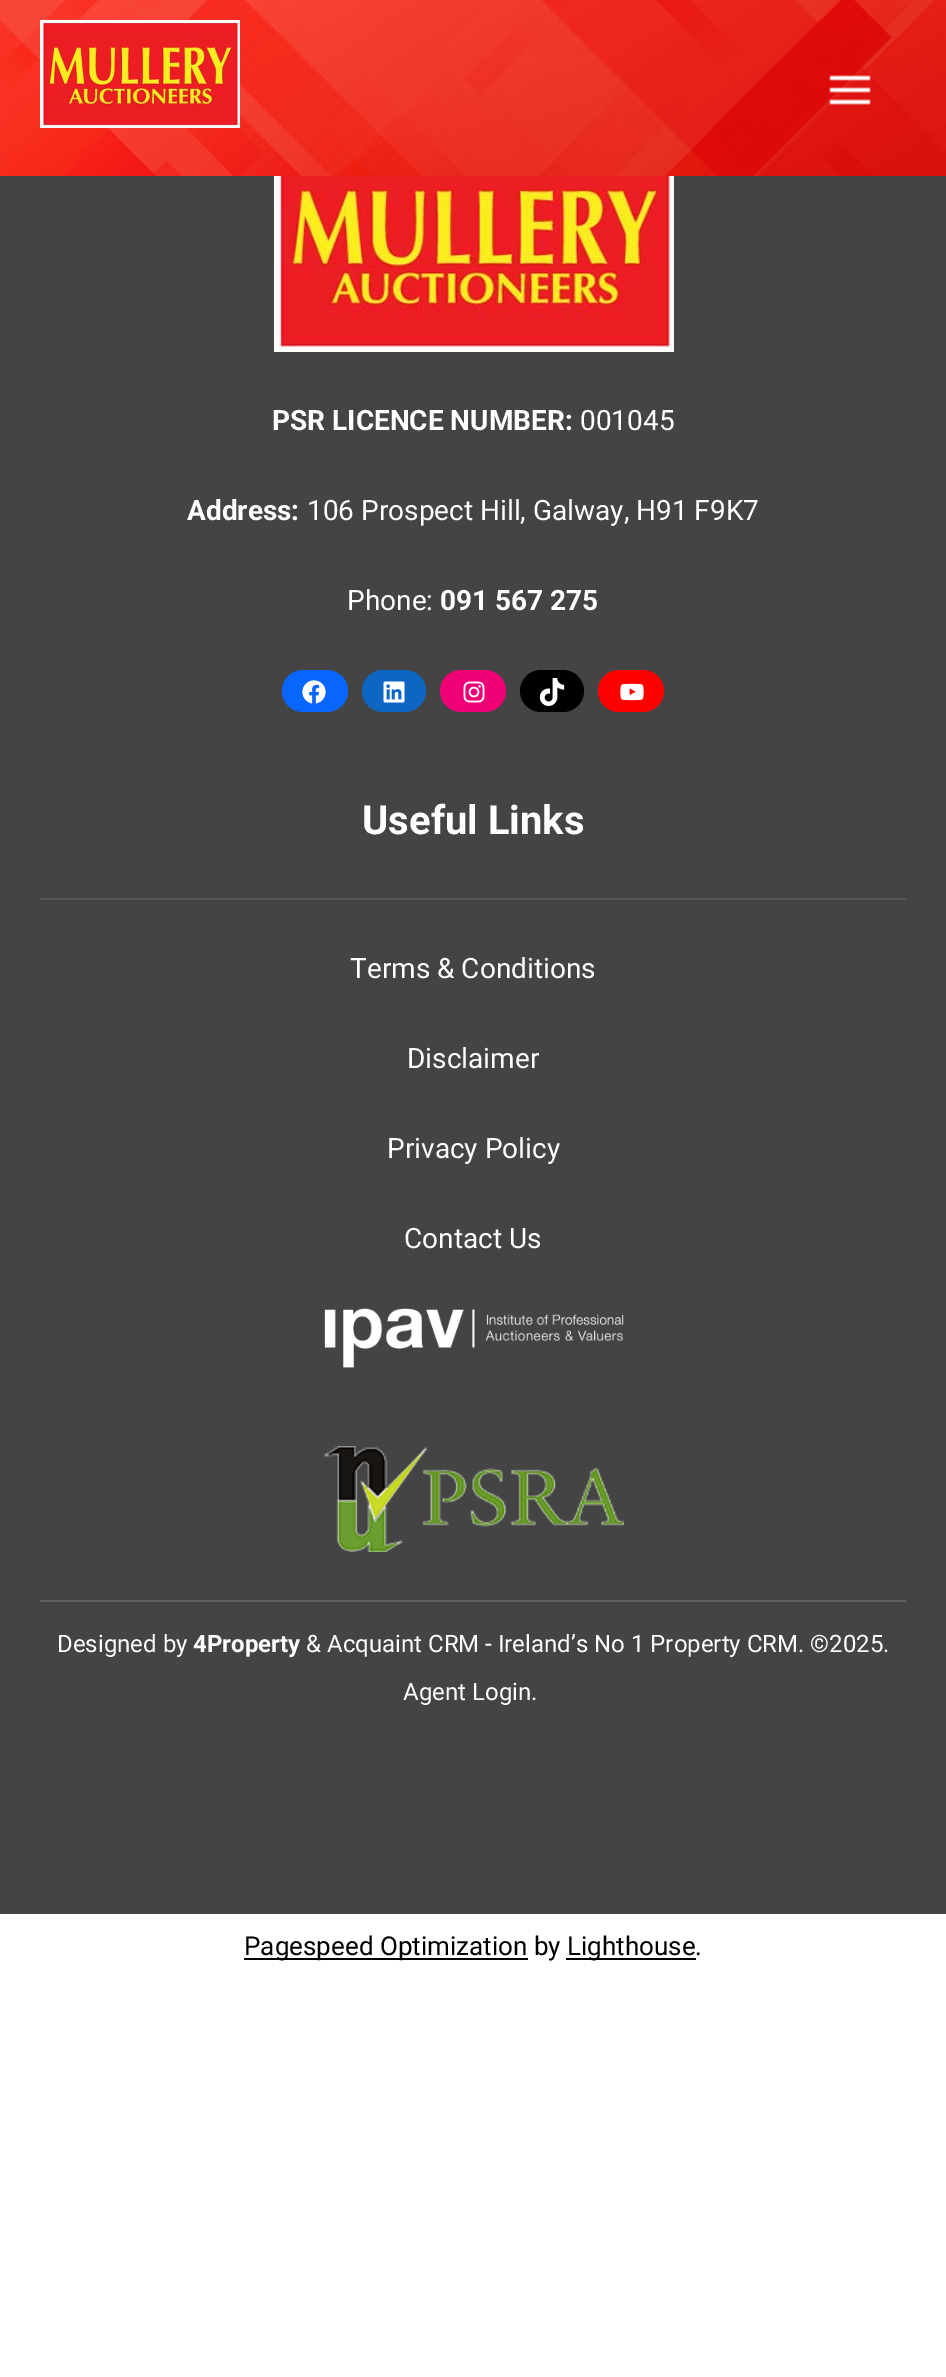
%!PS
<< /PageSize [946 2377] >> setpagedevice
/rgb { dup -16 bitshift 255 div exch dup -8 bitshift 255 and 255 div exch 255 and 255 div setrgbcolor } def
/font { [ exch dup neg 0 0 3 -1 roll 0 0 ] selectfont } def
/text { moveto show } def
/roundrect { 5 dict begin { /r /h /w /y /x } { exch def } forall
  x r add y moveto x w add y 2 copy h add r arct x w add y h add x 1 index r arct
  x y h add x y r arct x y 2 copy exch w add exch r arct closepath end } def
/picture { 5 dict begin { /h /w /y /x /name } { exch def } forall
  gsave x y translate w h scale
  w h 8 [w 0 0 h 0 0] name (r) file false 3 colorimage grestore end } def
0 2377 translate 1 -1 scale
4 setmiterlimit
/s1 { /Roboto-Bold 28 font 16#FFFFFF rgb } def
/s2 { /Roboto-Regular 28 font 16#FFFFFF rgb } def
/s3 { /Roboto-Bold 40 font 16#FFFFFF rgb } def
/s4 { /Roboto-Regular 24 font 16#FFFFFF rgb } def
/s5 { /Roboto-Bold 24 font 16#FFFFFF rgb } def
/s6 { /Roboto-Regular 26 font 16#000000 rgb } def
16#FFFFFF rgb
0 0 946 2377 rectfill
(pic1.raw) 0 0 946 176 picture
(pic2.raw) 40 20 200 108 picture
(pic3.raw) 829 75 42 30 picture
16#444444 rgb
0 176 946 1738 rectfill
(pic4.raw) 274 176 400 176 picture
s1
(PSR LICENCE NUMBER:) 272 430 text
s2
(001045) 580 430 text
s1
(Address:) 187 520 text
s2
(106 Prospect Hill, Galway, H91 F9K7) 307 520 text
(Phone:) 347 610 text
s1
(091 567 275) 440 610 text
16#0866FF rgb
282 670 66 42 21 roundrect fill
(pic5.raw) 302 680 24 24 picture
16#0D66C2 rgb
362 670 64 42 21 roundrect fill
(pic6.raw) 383 681 22 22 picture
16#F00075 rgb
440 670 66 42 21 roundrect fill
(pic7.raw) 463 681 22 22 picture
16#000000 rgb
520 670 64 42 21 roundrect fill
(pic8.raw) 539 678 26 28 picture
16#FF0000 rgb
598 670 66 42 21 roundrect fill
(pic9.raw) 620 683 24 18 picture
s3
(Useful Links) 362 834 text
16#575757 rgb
40 898 866 2 rectfill
s2
(Terms & Conditions) 350 978 text
(Disclaimer) 407 1068 text
(Privacy Policy) 387 1158 text
(Contact Us) 404 1248 text
(pic10.raw) 324 1308 300 60 picture
(pic11.raw) 324 1446 300 106 picture
16#606060 rgb
40 1600 866 2 rectfill
s4
(Designed by) 57 1652 text
s5
(4Property) 193 1652 text
s4
(& Acquaint CRM - Ireland’s No 1 Property CRM. ©2025.) 306 1652 text
(Agent Login.) 403 1700 text
16#000000 rgb
244 1958 284 2 rectfill
s6
(Pagespeed Optimization by) 244 1955 text
566 1958 130 2 rectfill
(Lighthouse.) 567 1955 text
showpage
